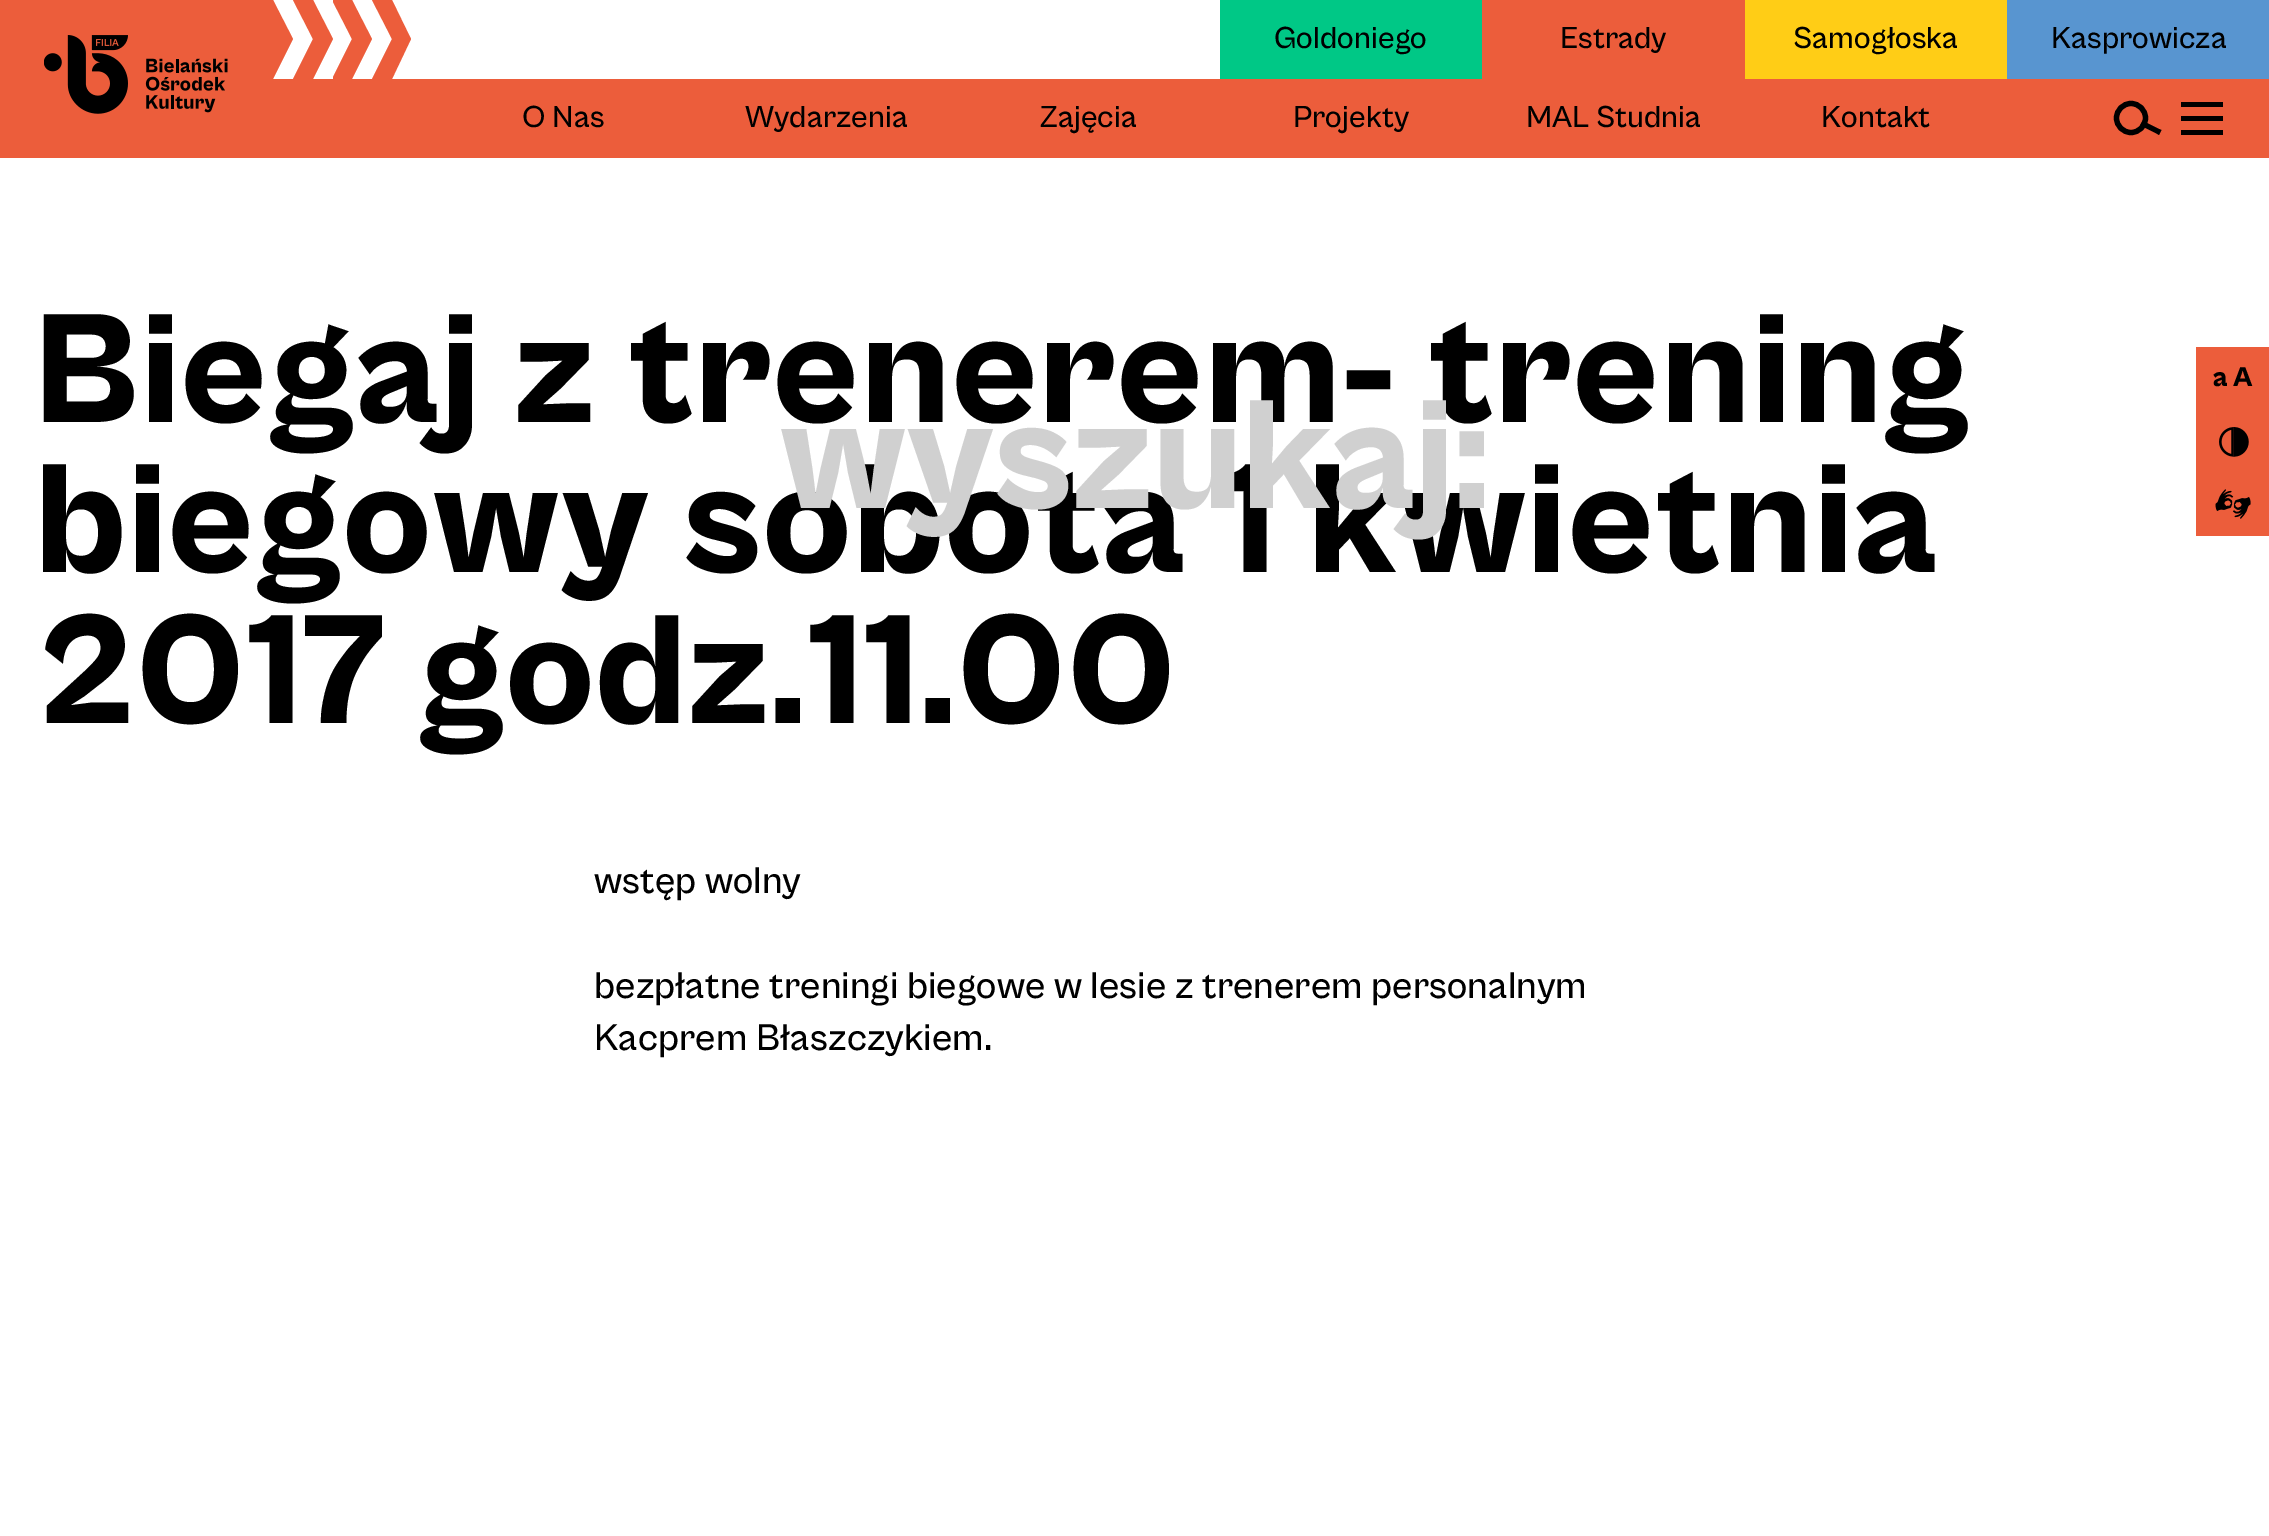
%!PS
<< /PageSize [2269 1536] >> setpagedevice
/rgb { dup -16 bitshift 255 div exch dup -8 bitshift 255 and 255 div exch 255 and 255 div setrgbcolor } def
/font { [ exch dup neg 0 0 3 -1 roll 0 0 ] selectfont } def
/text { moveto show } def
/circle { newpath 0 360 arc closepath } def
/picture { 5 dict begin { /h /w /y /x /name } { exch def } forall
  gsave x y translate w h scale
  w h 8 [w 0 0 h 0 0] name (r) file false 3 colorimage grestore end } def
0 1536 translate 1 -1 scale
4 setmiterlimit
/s1 { /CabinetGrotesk-Medium 31.5 font 16#000000 rgb } def
/s2 { /CabinetGrotesk-Medium 38.5 font 16#000000 rgb } def
/s3 { /CabinetGrotesk-ExtraBold 28 font 16#000000 rgb } def
/s4 { /CabinetGrotesk-ExtraBold 161 font 16#D0D0D0 rgb } def
16#FFFFFF rgb
0 0 2269 1536 rectfill
16#EC5D3B rgb
0 0 254 158 rectfill
(pic1.raw) 44 35 184 79 picture
273 0 moveto 254 0 lineto 254 79 lineto 273 79 lineto 293 39 lineto closepath fill
313 0 moveto 293 0 lineto 313 39 lineto 293 79 lineto 313 79 lineto 333 39 lineto closepath fill
gsave
333 0 78 79 rectclip
352 0 moveto 332 0 lineto 352 39 lineto 332 79 lineto 352 79 lineto 372 39 lineto closepath fill
grestore
392 0 moveto 372 0 lineto 392 39 lineto 372 79 lineto 392 79 lineto 411 39 lineto closepath fill
16#00C886 rgb
1220 0 262 79 rectfill
s1
(Goldoniego) 1274 48 text
16#EC5D3B rgb
1482 0 263 79 rectfill
s1
(Estrady) 1560 48 text
16#FFCD16 rgb
1745 0 262 79 rectfill
s1
(Samogłoska) 1793 48 text
16#5895D0 rgb
2007 0 262 79 rectfill
s1
(Kasprowicza) 2051 48 text
16#EC5D3B rgb
254 79 2015 79 rectfill
s1
(O Nas) 522 127 text
(Wydarzenia) 745 127 text
(Zajęcia) 1040 127 text
(Projekty) 1293 127 text
(MAL Studnia) 1526 127 text
(Kontakt) 1821 127 text
5.2 setlinewidth
2131 118 14.5 circle stroke
2145 122 moveto 2142.5 120.5 lineto 2140 125.5 lineto 2142.5 126.5 lineto closepath 2156.5 133.5 moveto 2159 135 lineto 2161.5 130 lineto 2159 129 lineto closepath 2142.5 126.5 moveto 2156.5 133.5 lineto 2159 129 lineto 2145 122 lineto closepath fill
2181 116 42 5 rectfill
2181 102 42 5 rectfill
2181 130 42 5 rectfill
/CabinetGrotesk-ExtraBold 161 font
35 422 moveto 1.6 0 (Biegaj z trenerem- trening) ashow
35 572 moveto 1.6 0 (biegowy sobota 1 kwietnia) ashow
35 723 moveto 1.6 0 (2017 godz.11.00) ashow
s2
(wstęp wolny) 594 893 text
(bezpłatne treningi biegowe w lesie z trenerem personalnym) 594 998 text
(Kacprem Błaszczykiem.) 594 1050 text
16#EC5D3B rgb
2196 347 73 189 rectfill
s3
(a A) 2213 386 text
(pic2.raw) 2219 427 30 30 picture
(pic3.raw) 2215 489 36 30 picture
s4
(wyszukaj:) 780 508 text
showpage
